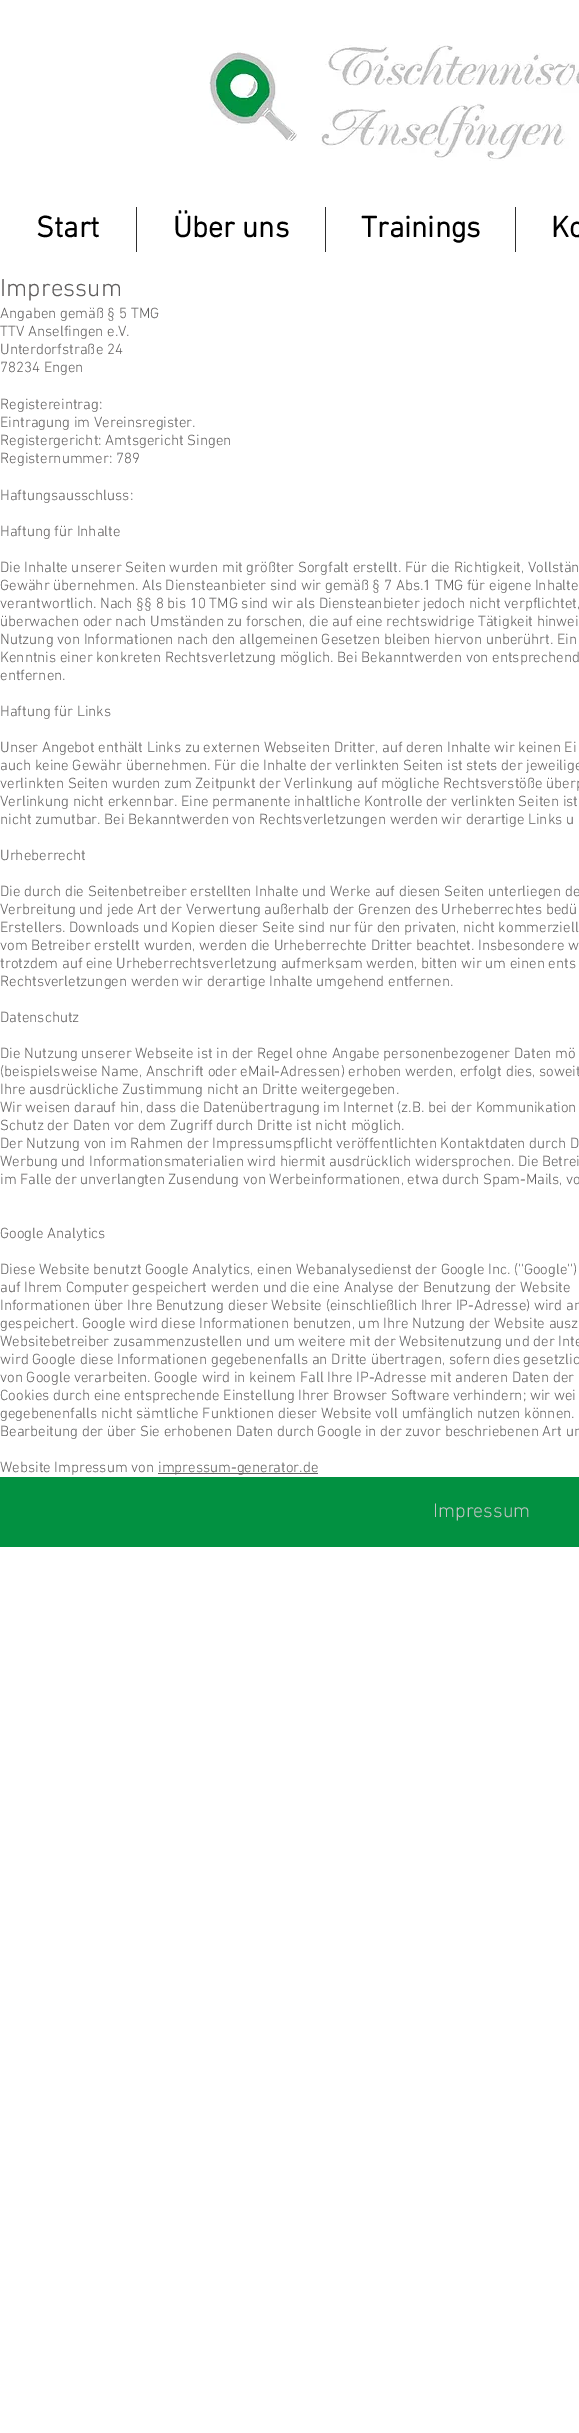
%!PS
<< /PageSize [579 2433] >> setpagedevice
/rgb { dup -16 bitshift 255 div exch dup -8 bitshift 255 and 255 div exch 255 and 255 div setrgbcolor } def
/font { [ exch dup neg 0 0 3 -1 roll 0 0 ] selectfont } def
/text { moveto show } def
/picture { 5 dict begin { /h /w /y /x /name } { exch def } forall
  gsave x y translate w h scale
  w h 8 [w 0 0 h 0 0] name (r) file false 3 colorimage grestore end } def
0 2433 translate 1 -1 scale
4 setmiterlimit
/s1 { /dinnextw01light-Bold 30 font 16#000000 rgb } def
/s2 { /dinnextw01light-Light 25 font 16#605E5E rgb } def
/s3 { /dinnextw01light-Light 15 font 16#605E5E rgb } def
/s4 { /dinnextw01light-Light 20 font 16#C3C3C3 rgb } def
16#FFFFFF rgb
0 0 579 2433 rectfill
(pic1.raw) 209 45 370 116 picture
s1
(Start) 36 237 text
16#2F2E2E rgb
136 207 1 45 rectfill
s1
(Über uns) 173 237 text
16#2F2E2E rgb
325 207 1 45 rectfill
s1
(Trainings) 361 237 text
16#2F2E2E rgb
515 207 1 45 rectfill
s1
(Ko) 551 237 text
s2
(Impressum) 0 296 text
s3
(Angaben gemäß § 5 TMG) 0 318 text
(TTV Anselfingen e.V.) 0 336 text
(Unterdorfstraße 24) 0 354 text
(78234 Engen) 0 372 text
(Registereintrag:) 0 409 text
(Eintragung im Vereinsregister.) 0 427 text
(Registergericht: Amtsgericht Singen) 0 445 text
(Registernummer: 789) 0 463 text
(Haftungsausschluss:) 0 500 text
(Haftung für Inhalte) 0 536 text
(Die Inhalte unserer Seiten wurden mit größter Sorgfalt erstellt. Für die Richtigkeit, Vollstän) 0 572 text
(Gewähr übernehmen. Als Diensteanbieter sind wir gemäß § 7 Abs.1 TMG für eigene Inhalte) 0 590 text
(verantwortlich. Nach §§ 8 bis 10 TMG sind wir als Diensteanbieter jedoch nicht verpflichtet,) 0 608 text
(überwachen oder nach Umständen zu forschen, die auf eine rechtswidrige Tätigkeit hinwei) 0 626 text
(Nutzung von Informationen nach den allgemeinen Gesetzen bleiben hiervon unberührt. Ein) 0 644 text
(Kenntnis einer konkreten Rechtsverletzung möglich. Bei Bekanntwerden von entsprechend) 0 662 text
(entfernen.) 0 680 text
(Haftung für Links) 0 716 text
(Unser Angebot enthält Links zu externen Webseiten Dritter, auf deren Inhalte wir keinen Ei) 0 752 text
(auch keine Gewähr übernehmen. Für die Inhalte der verlinkten Seiten ist stets der jeweilige) 0 770 text
(verlinkten Seiten wurden zum Zeitpunkt der Verlinkung auf mögliche Rechtsverstöße überp) 0 788 text
(Verlinkung nicht erkennbar. Eine permanente inhaltliche Kontrolle der verlinkten Seiten ist) 0 806 text
(nicht zumutbar. Bei Bekanntwerden von Rechtsverletzungen werden wir derartige Links u) 0 824 text
(Urheberrecht) 0 860 text
(Die durch die Seitenbetreiber erstellten Inhalte und Werke auf diesen Seiten unterliegen de) 0 896 text
(Verbreitung und jede Art der Verwertung außerhalb der Grenzen des Urheberrechtes bedü) 0 914 text
(Erstellers. Downloads und Kopien dieser Seite sind nur für den privaten, nicht kommerziell) 0 932 text
(vom Betreiber erstellt wurden, werden die Urheberrechte Dritter beachtet. Insbesondere w) 0 950 text
(trotzdem auf eine Urheberrechtsverletzung aufmerksam werden, bitten wir um einen ents) 0 968 text
(Rechtsverletzungen werden wir derartige Inhalte umgehend entfernen.) 0 986 text
(Datenschutz) 0 1022 text
(Die Nutzung unserer Webseite ist in der Regel ohne Angabe personenbezogener Daten mö) 0 1058 text
(\(beispielsweise Name, Anschrift oder eMail-Adressen\) erhoben werden, erfolgt dies, soweit) 0 1076 text
(Ihre ausdrückliche Zustimmung nicht an Dritte weitergegeben.) 0 1094 text
(Wir weisen darauf hin, dass die Datenübertragung im Internet \(z.B. bei der Kommunikation) 0 1112 text
(Schutz der Daten vor dem Zugriff durch Dritte ist nicht möglich.) 0 1130 text
(Der Nutzung von im Rahmen der Impressumspflicht veröffentlichten Kontaktdaten durch D) 0 1148 text
(Werbung und Informationsmaterialien wird hiermit ausdrücklich widersprochen. Die Betrei) 0 1166 text
(im Falle der unverlangten Zusendung von Werbeinformationen, etwa durch Spam-Mails, vo) 0 1184 text
(Google Analytics) 0 1238 text
(Diese Website benutzt Google Analytics, einen Webanalysedienst der Google Inc. \(''Google''\)) 0 1274 text
(auf Ihrem Computer gespeichert werden und die eine Analyse der Benutzung der Website) 0 1292 text
(Informationen über Ihre Benutzung dieser Website \(einschließlich Ihrer IP-Adresse\) wird an) 0 1310 text
(gespeichert. Google wird diese Informationen benutzen, um Ihre Nutzung der Website ausz) 0 1328 text
(Websitebetreiber zusammenzustellen und um weitere mit der Websitenutzung und der Inte) 0 1346 text
(wird Google diese Informationen gegebenenfalls an Dritte übertragen, sofern dies gesetzlic) 0 1364 text
(von Google verarbeiten. Google wird in keinem Fall Ihre IP-Adresse mit anderen Daten der) 0 1382 text
(Cookies durch eine entsprechende Einstellung Ihrer Browser Software verhindern; wir wei) 0 1400 text
(gegebenenfalls nicht sämtliche Funktionen dieser Website voll umfänglich nutzen können.) 0 1418 text
(Bearbeitung der über Sie erhobenen Daten durch Google in der zuvor beschriebenen Art un) 0 1436 text
(Website Impressum von) 0 1472 text
158 1473 160 1 rectfill
(impressum-generator.de) 158 1472 text
16#029141 rgb
0 1477 579 70 rectfill
s4
(Impressum) 433 1517 text
showpage
